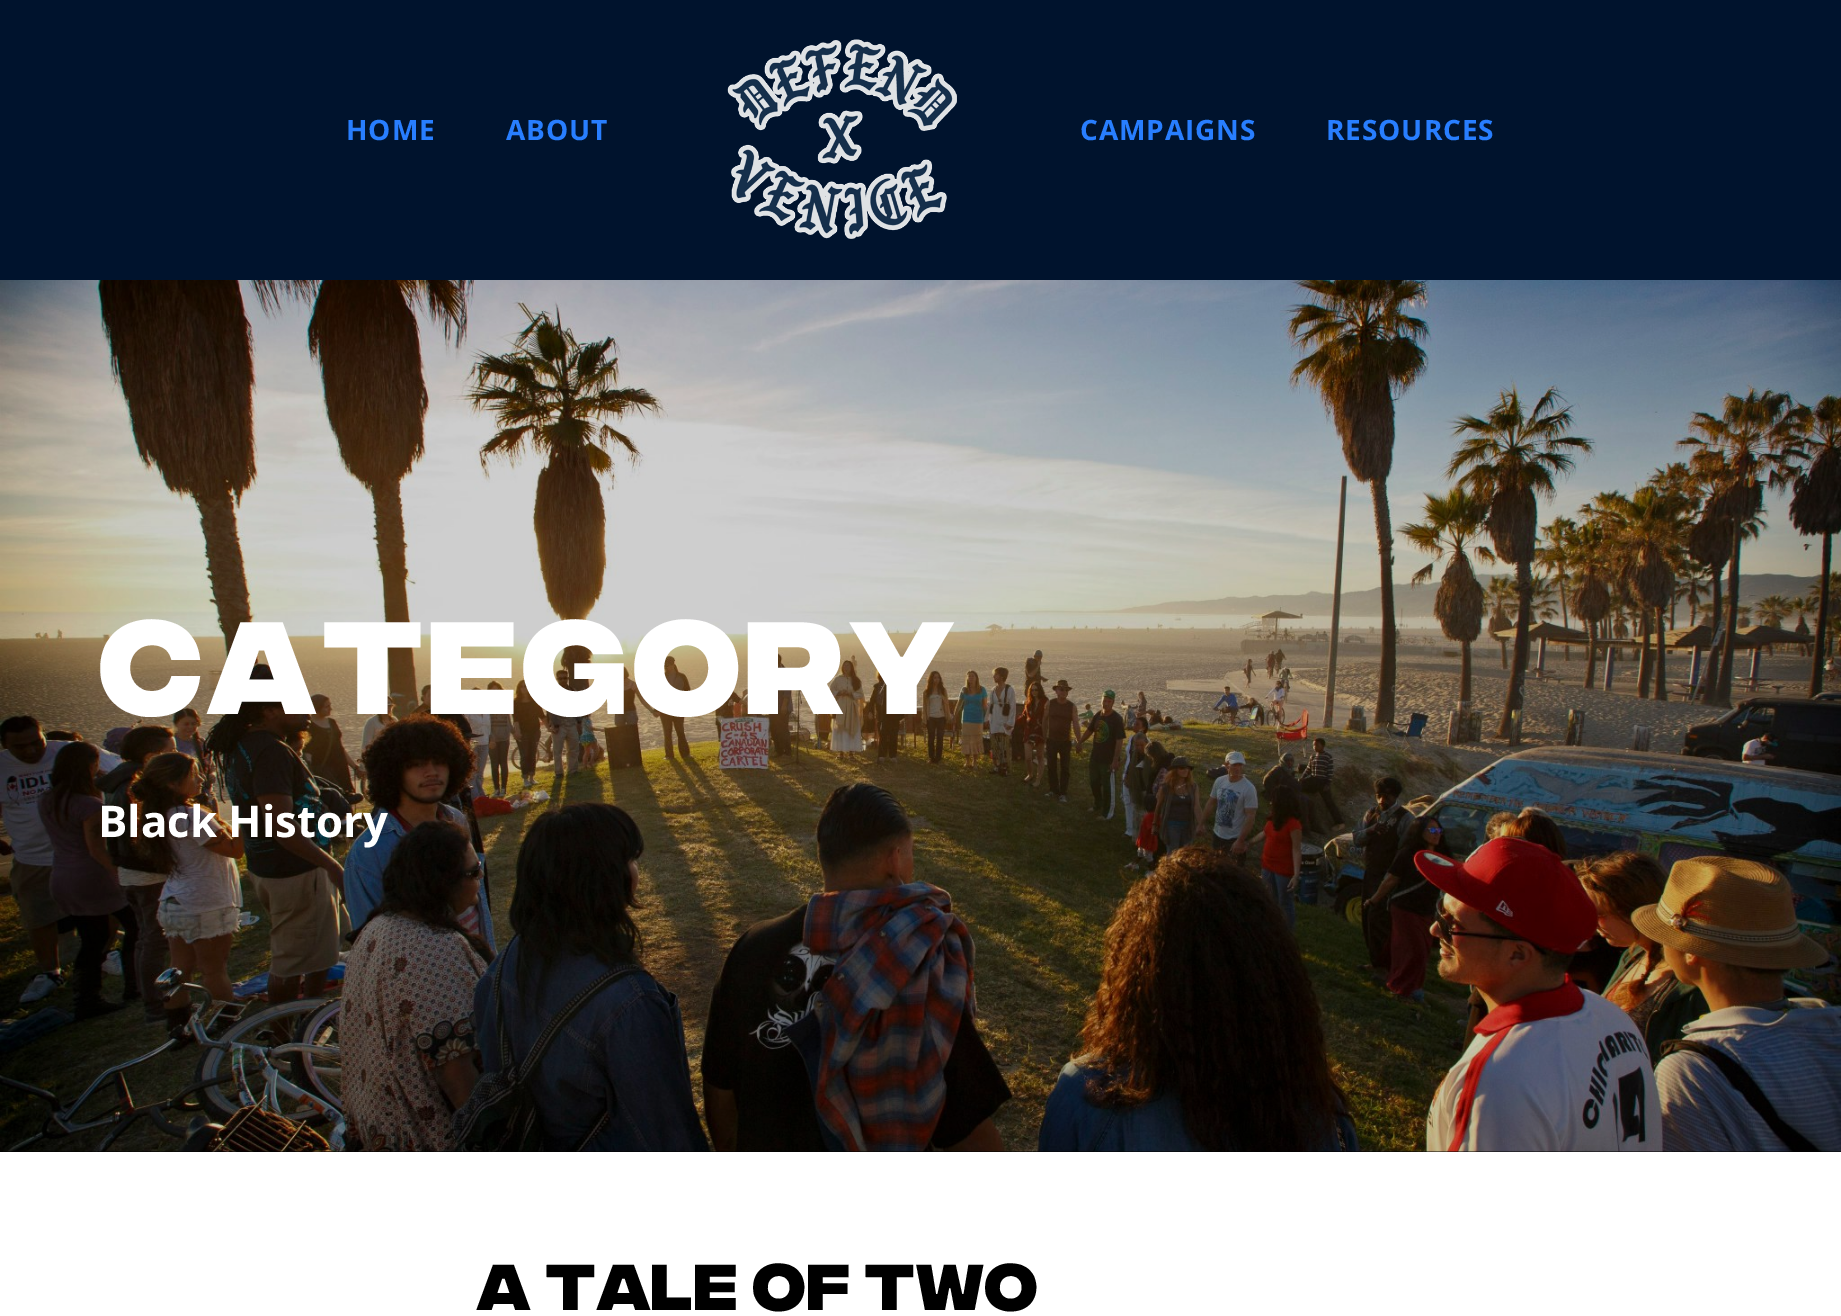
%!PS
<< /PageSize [1841 1316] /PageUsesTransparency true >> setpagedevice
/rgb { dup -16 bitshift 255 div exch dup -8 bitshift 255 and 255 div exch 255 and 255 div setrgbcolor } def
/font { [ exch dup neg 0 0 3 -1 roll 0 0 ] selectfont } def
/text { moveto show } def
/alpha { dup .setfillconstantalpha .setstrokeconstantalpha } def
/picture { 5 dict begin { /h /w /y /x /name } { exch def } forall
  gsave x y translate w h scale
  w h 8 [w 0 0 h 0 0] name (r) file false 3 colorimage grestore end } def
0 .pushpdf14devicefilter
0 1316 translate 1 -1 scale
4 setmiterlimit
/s1 { /OpenSans-Bold 43.75 font 16#FFFFFF rgb } def
/s2 { /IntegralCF-Bold 64.75 font 16#000000 rgb } def
16#FFFFFF rgb
0 0 1841 1316 rectfill
16#00132D rgb
0 0 1841 280 rectfill
/OpenSans-Bold 28 font
16#287EFF rgb
346 140 moveto 0.9 0 (HOME) ashow
506 140 moveto 0.9 0 (ABOUT) ashow
(pic1.raw) 727 39 230 200 picture
1080 140 moveto 0.9 0 (CAMPAIGNS) ashow
1326 140 moveto 0.9 0 (RESOURCES) ashow
16#000000 rgb
0 1151 1841 1 rectfill
(pic2.raw) 0 280 1841 872 picture
0.19 alpha
0 280 1841 872 rectfill
/IntegralCF-Bold 131.25 font
1 alpha
16#FFFFFF rgb
98 714 moveto 3.5 0 (CATEGORY) ashow
s1
(Black History) 98 837 text
s2
(A Tale of Two) 476 1310 text
.poppdf14devicefilter showpage
